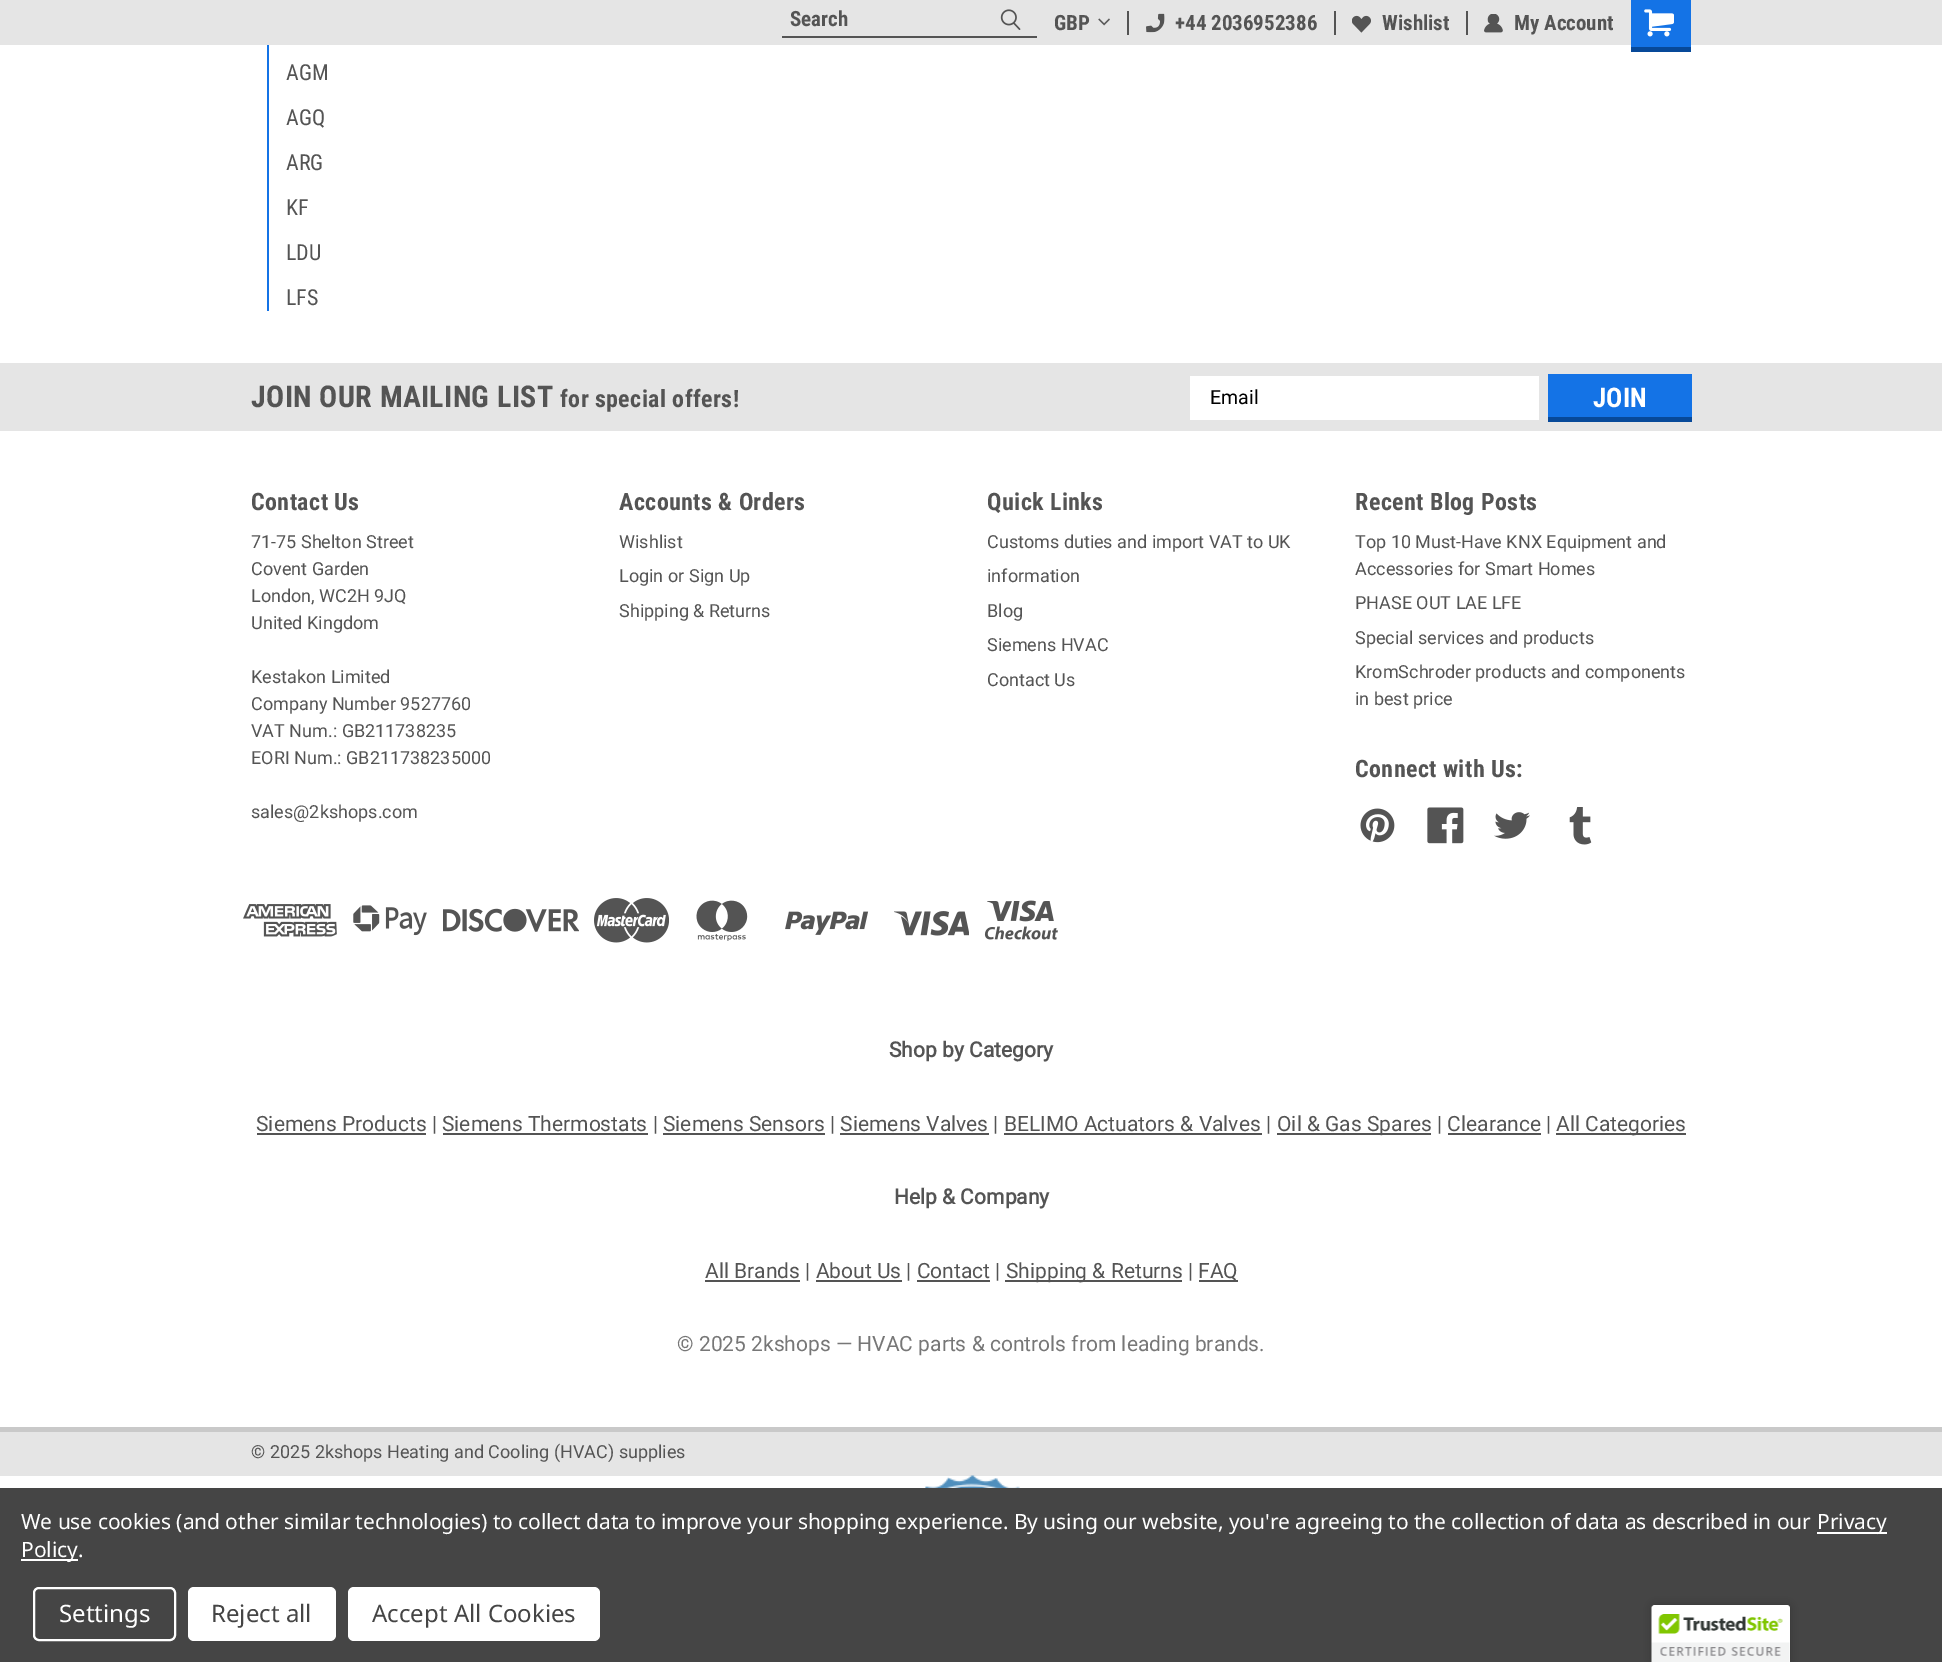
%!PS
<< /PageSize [1942 1662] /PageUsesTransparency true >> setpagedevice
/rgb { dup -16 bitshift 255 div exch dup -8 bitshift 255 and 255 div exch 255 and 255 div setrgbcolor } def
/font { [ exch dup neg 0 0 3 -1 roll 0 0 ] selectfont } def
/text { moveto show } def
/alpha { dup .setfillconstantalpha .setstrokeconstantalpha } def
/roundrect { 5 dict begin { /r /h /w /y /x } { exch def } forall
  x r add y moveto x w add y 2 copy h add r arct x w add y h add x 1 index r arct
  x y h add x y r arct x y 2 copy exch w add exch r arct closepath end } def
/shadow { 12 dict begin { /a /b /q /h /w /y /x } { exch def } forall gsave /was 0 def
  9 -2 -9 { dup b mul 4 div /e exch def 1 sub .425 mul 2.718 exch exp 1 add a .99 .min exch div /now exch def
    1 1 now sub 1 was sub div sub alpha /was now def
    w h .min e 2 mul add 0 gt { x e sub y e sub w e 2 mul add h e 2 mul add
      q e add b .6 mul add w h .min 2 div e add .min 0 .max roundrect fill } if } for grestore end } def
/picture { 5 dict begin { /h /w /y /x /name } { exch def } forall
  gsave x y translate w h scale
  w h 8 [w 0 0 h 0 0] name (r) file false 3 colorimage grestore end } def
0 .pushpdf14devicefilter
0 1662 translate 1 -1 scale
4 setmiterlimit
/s1 { /RobotoCondensed-Bold 21 font 16#545454 rgb } def
/s2 { /RobotoCondensed-Regular 22 font 16#545454 rgb } def
/s3 { /Roboto-Regular 19.5 font 16#000000 rgb } def
/s4 { /RobotoCondensed-Bold 27 font 16#FFFFFF rgb } def
/s5 { /Roboto-Regular 18 font 16#545454 rgb } def
/s6 { /Roboto-Bold 21 font 16#545454 rgb } def
/s7 { /Roboto-Regular 21 font 16#545454 rgb } def
/s8 { /Roboto-Regular 21 font 16#777777 rgb } def
/s9 { /NotoSans-Regular 24 font 16#FFFFFF rgb } def
/s10 { /NotoSans-Regular 24 font 16#454545 rgb } def
16#FFFFFF rgb
0 0 1942 1662 rectfill
16#E5E5E5 rgb
0 0 1942 45 rectfill
16#545454 rgb
782 36 255 2 rectfill
s1
(Search) 790 26 text
(pic1.raw) 1000 9 21 21 picture
1127 11 2 24 rectfill
(GBP) 1054 30 text
(pic2.raw) 1098 18 12 8 picture
1334 11 2 24 rectfill
(pic3.raw) 1146 13 19 20 picture
(+44 2036952386) 1175 30 text
1466 11 2 24 rectfill
(pic4.raw) 1352 15 19 18 picture
(Wishlist) 1382 30 text
(pic5.raw) 1484 14 19 19 picture
(My Account) 1514 30 text
16#1473E6 rgb
1631 0 60 47 rectfill
16#074999 rgb
1631 47 60 5 rectfill
(pic6.raw) 1644 9 30 28 picture
16#1473E6 rgb
267 45 2 266 rectfill
s2
(AGM) 286 80 text
(AGQ) 286 125 text
(ARG) 286 170 text
(KF) 286 215 text
(LDU) 286 260 text
(LFS) 286 305 text
16#E5E5E5 rgb
0 363 1942 68 rectfill
/RobotoCondensed-Bold 30 font
16#545454 rgb
251 407 moveto 0.4 0 (JOIN OUR MAILING LIST) ashow
/RobotoCondensed-Bold 24 font
560 407 moveto 0.4 0 (for special offers!) ashow
16#FFFFFF rgb
1190 376 349 44 rectfill
s3
(Email) 1210 404 text
16#1473E6 rgb
1548 374 144 43 rectfill
16#074999 rgb
1548 417 144 5 rectfill
s4
(JOIN) 1593 407 text
/RobotoCondensed-Bold 24 font
16#545454 rgb
251 510 moveto 0.4 0 (Contact Us) ashow
s5
(71-75 Shelton Street) 251 548 text
(Covent Garden) 251 575 text
(London, WC2H 9JQ) 251 602 text
(United Kingdom) 251 629 text
(Kestakon Limited) 251 683 text
(Company Number 9527760) 251 710 text
(VAT Num.: GB211738235) 251 737 text
(EORI Num.: GB211738235000) 251 764 text
(sales@2kshops.com) 251 818 text
/RobotoCondensed-Bold 24 font
619 510 moveto 0.4 0 (Accounts & Orders) ashow
s5
(Wishlist) 619 548 text
(Login or) 619 582 text
(Sign Up) 689 582 text
(Shipping & Returns) 619 617 text
/RobotoCondensed-Bold 24 font
987 510 moveto 0.4 0 (Quick Links) ashow
s5
(Customs duties and import VAT to UK) 987 548 text
(information) 987 582 text
(Blog) 987 617 text
(Siemens HVAC) 987 651 text
(Contact Us) 987 686 text
/RobotoCondensed-Bold 24 font
1355 510 moveto 0.4 0 (Recent Blog Posts) ashow
s5
(Top 10 Must-Have KNX Equipment and) 1355 548 text
(Accessories for Smart Homes) 1355 575 text
(PHASE OUT LAE LFE) 1355 609 text
(Special services and products) 1355 644 text
(KromSchroder products and components) 1355 678 text
(in best price) 1355 705 text
/RobotoCondensed-Bold 24 font
1355 777 moveto 0.4 0 (Connect with Us:) ashow
(pic7.raw) 1360 808 35 35 picture
(pic8.raw) 1427 807 37 37 picture
(pic9.raw) 1494 812 36 27 picture
(pic10.raw) 1569 807 23 38 picture
(pic11.raw) 243 904 94 33 picture
(pic12.raw) 353 905 74 31 picture
(pic13.raw) 443 908 136 24 picture
(pic14.raw) 594 898 75 45 picture
(pic15.raw) 696 900 52 41 picture
(pic16.raw) 785 911 84 24 picture
(pic17.raw) 894 911 75 25 picture
(pic18.raw) 984 900 74 40 picture
s6
(Shop by Category) 889 1057 text
257 1133 169 2 rectfill
s7
(Siemens Products | Siemens Thermostats | Siemens Sensors | Siemens Valves | BELIMO Actuators & Valves |) 256 1131 text
1277 1133 154 2 rectfill
(Oil & Gas Spares | Clearance |) 1277 1131 text
1556 1133 130 2 rectfill
(All Categories) 1556 1131 text
443 1133 205 2 rectfill
663 1133 162 2 rectfill
840 1133 149 2 rectfill
1004 1133 258 2 rectfill
1448 1133 93 2 rectfill
s6
(Help & Company) 894 1204 text
705 1280 95 2 rectfill
s7
(All Brands | About Us | Contact |) 705 1278 text
1005 1280 177 2 rectfill
(Shipping & Returns |) 1006 1278 text
1199 1280 39 2 rectfill
(FAQ) 1198 1278 text
816 1280 86 2 rectfill
917 1280 73 2 rectfill
s8
(© 2025 2kshops — HVAC parts & controls from leading brands.) 677 1351 text
16#E5E5E5 rgb
0 1432 1942 44 rectfill
16#C9C9C9 rgb
0 1427 1942 5 rectfill
s5
(© 2025 2kshops Heating and Cooling \(HVAC\) supplies) 251 1458 text
(pic19.raw) 925 1475 95 13 picture
16#454545 rgb
0 1488 1942 174 rectfill
/NotoSans-Regular 21 font
16#FFFFFF rgb
21 1529 moveto -0.08 0 (We use cookies \(and other similar technologies\) to collect data to improve your shopping experience. By using our website, you're agreeing to the collection of data as described in our) ashow
1817 1532 70 2 rectfill
1817 1529 moveto -0.08 0 (Privacy) ashow
21 1559 57 2 rectfill
21 1557 moveto -0.08 0 (Policy.) ashow
2 setlinewidth
34 1588 141 52 5 roundrect stroke
s9
(Settings) 59 1622 text
188 1587 148 54 6 roundrect fill
s10
(Reject all) 211 1622 text
16#FFFFFF rgb
348 1587 252 54 6 roundrect fill
s10
(Accept All Cookies) 372 1622 text
16#000000 rgb
1652 1605 138 57 3 4 0.2 shadow
16#FFFFFF rgb
1655 1605 moveto 1787 1605 lineto 1788.5 1605 1790 1606.5 1790 1608 curveto 1790 1662 lineto 1652 1662 lineto 1652 1608 lineto 1652 1606.5 1653.5 1605 1655 1605 curveto closepath fill
(pic20.raw) 1651 1605 139 57 picture
.poppdf14devicefilter showpage
